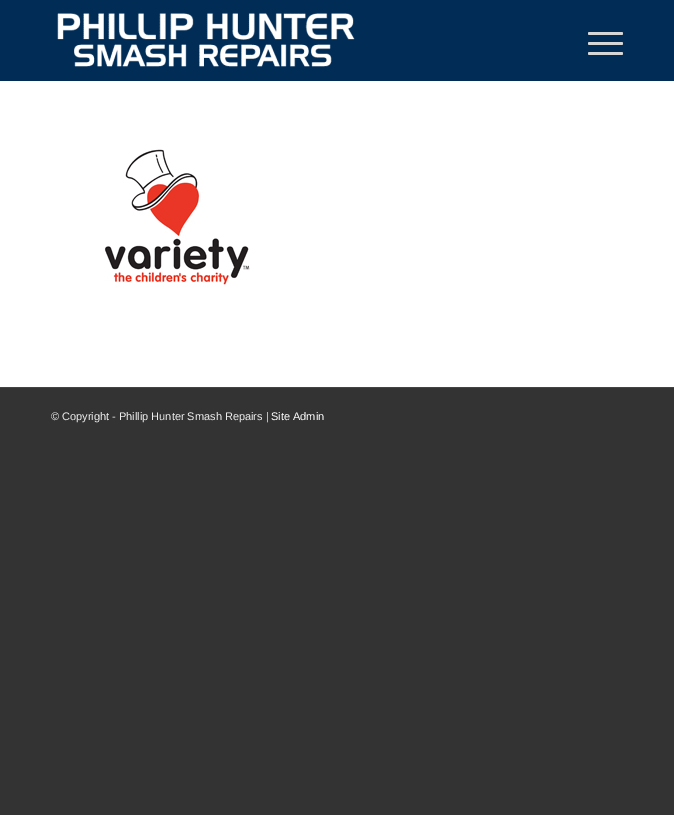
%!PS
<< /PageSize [674 815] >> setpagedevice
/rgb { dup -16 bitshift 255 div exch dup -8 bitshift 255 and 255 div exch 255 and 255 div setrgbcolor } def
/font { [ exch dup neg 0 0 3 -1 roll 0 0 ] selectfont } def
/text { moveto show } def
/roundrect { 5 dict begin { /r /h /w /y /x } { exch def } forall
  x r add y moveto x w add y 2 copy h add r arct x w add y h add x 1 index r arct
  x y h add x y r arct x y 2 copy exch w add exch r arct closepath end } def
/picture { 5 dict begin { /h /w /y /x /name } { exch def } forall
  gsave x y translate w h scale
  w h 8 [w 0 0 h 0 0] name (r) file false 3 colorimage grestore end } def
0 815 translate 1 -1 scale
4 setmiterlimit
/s1 { /LiberationSans-Regular 11 font 16#EEEEEE rgb } def
/s2 { /LiberationSans-Regular 11 font 16#FFFFFF rgb } def
16#333333 rgb
0 0 674 815 rectfill
16#002C56 rgb
0 0 674 81 rectfill
(pic1.raw) 57 13 298 54 picture
16#D6D6D6 rgb
588 42 35 3 1.5 roundrect fill
588 32 35 3 1.5 roundrect fill
588 52 35 3 1.5 roundrect fill
16#FFFFFF rgb
0 81 674 306 rectfill
(pic2.raw) 104 149 146 138 picture
16#444444 rgb
0 387 674 1 rectfill
s1
(© Copyright - Phillip Hunter Smash Repairs |) 51 420 text
s2
(Site Admin) 271 420 text
showpage
